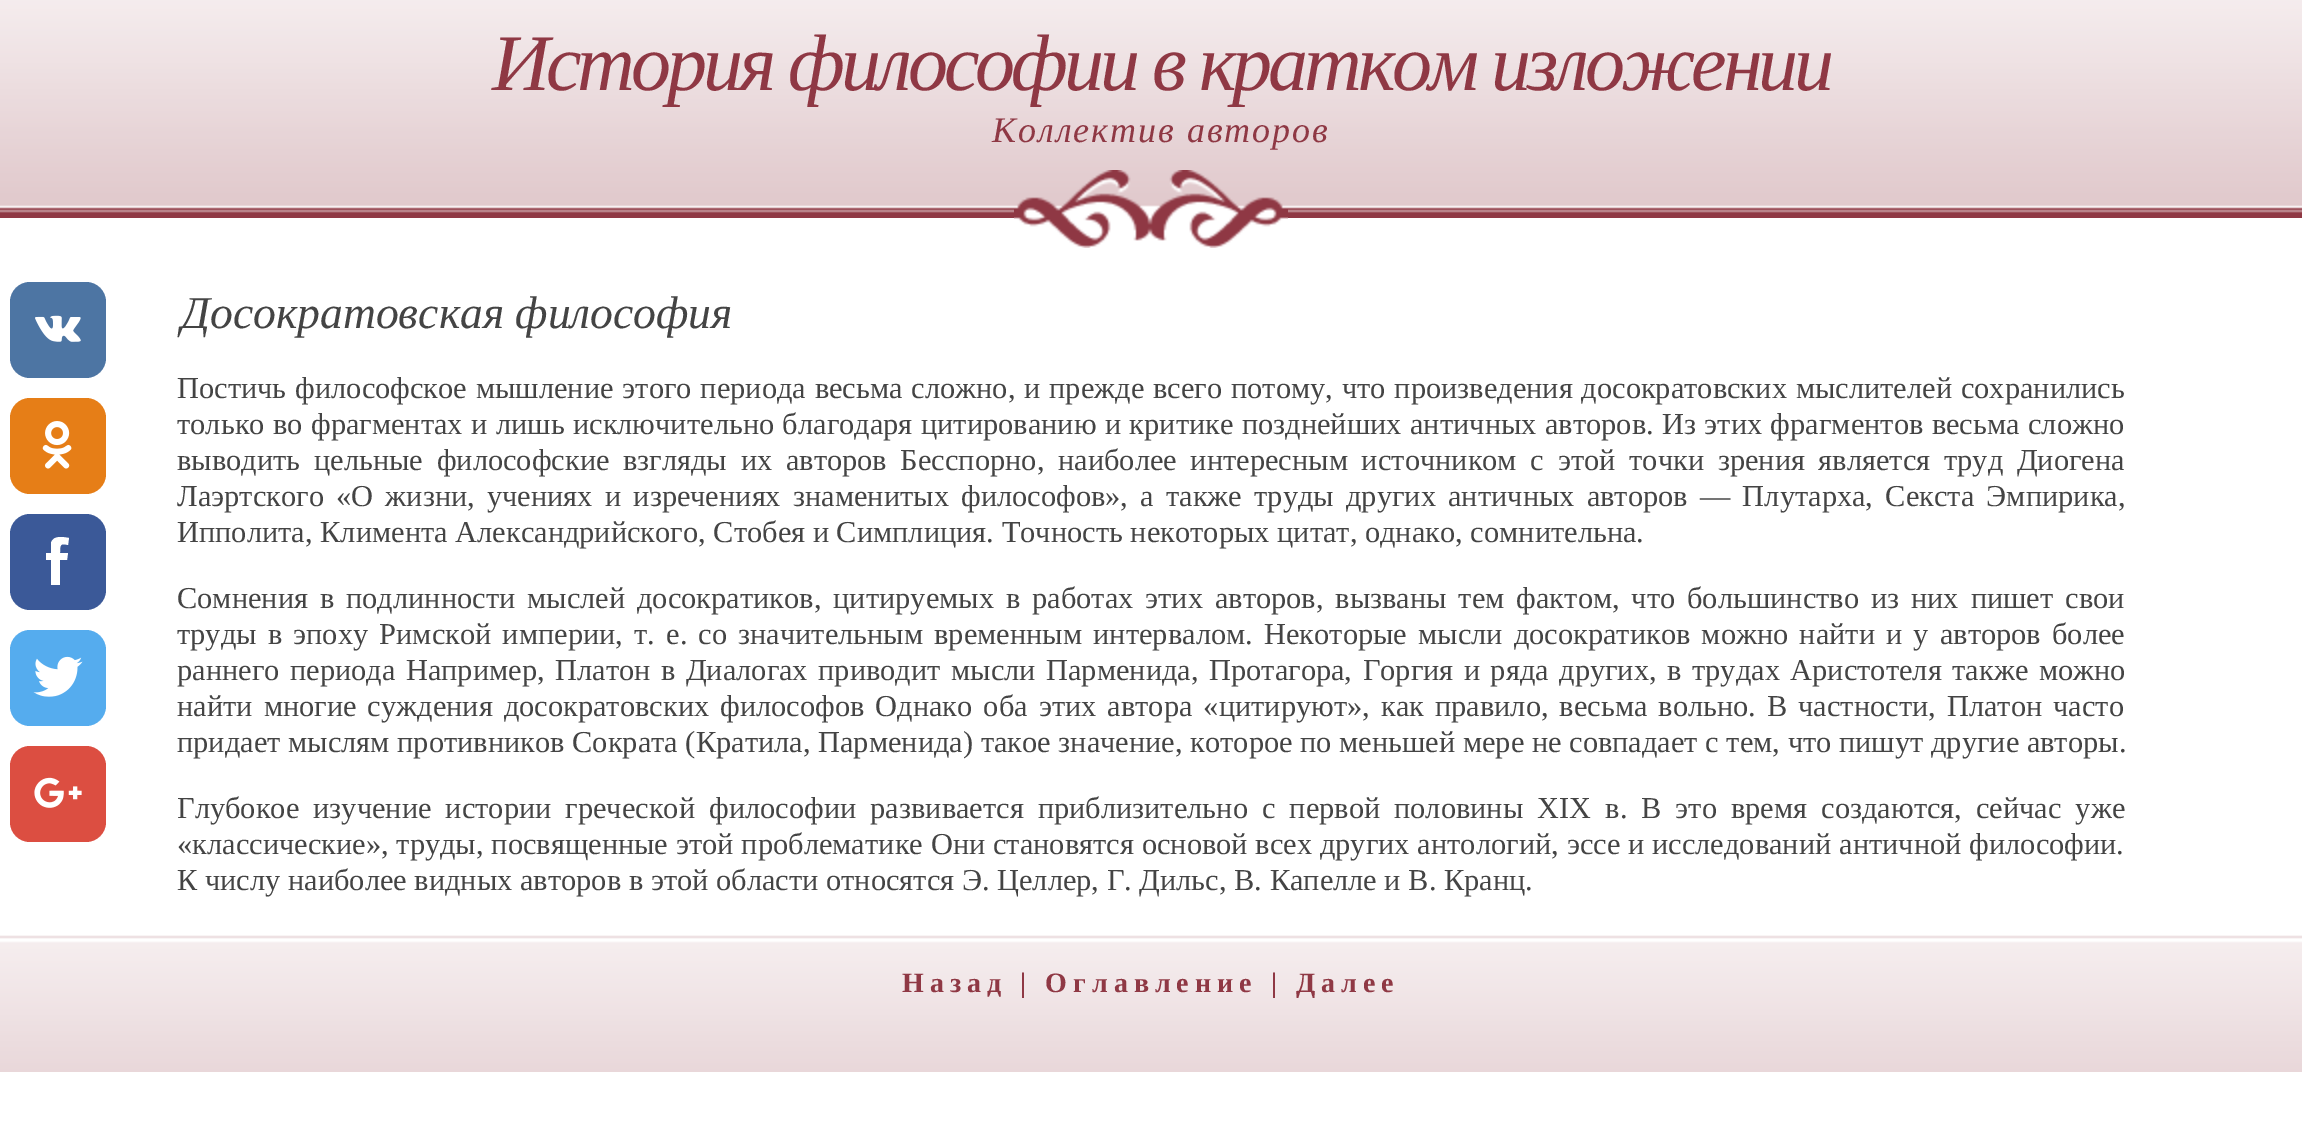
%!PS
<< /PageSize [2302 1121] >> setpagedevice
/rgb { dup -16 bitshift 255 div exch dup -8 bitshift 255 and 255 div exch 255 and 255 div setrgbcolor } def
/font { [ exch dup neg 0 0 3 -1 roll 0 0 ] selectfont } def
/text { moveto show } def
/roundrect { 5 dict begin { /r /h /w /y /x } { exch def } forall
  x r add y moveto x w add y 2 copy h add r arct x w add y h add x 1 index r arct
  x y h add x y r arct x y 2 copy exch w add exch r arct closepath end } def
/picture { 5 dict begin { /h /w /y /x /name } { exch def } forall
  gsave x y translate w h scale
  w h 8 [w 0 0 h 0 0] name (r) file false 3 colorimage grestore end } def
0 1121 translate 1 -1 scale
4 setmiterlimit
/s1 { /LiberationSerif-Italic 45.6 font 16#444444 rgb } def
/s2 { /LiberationSerif-Regular 30.4 font 16#444444 rgb } def
16#FFFFFF rgb
0 0 2302 1121 rectfill
(pic1.raw) 0 0 2302 218 picture
(pic2.raw) 1014 170 274 78 picture
/LiberationSerif-Italic 80 font
16#8F3844 rgb
492 90 moveto -4 0 (История философии в кратком изложении) ashow
/LiberationSerif-Italic 36 font
992 142 moveto 2 0 (Коллектив авторов) ashow
16#4D75A3 rgb
10 282 96 96 20 roundrect fill
(pic3.raw) 35 315 46 27 picture
16#E67E17 rgb
10 398 96 96 20 roundrect fill
(pic4.raw) 42 421 30 48 picture
16#3B5998 rgb
10 514 96 96 20 roundrect fill
16#FFFFFF rgb
46 553 moveto 51 553 lineto 51 543 lineto 53 535 63 537 69 538 curveto 68 545 lineto 60 543 60 545 60 553 curveto 68 553 lineto 67 560 lineto 60 560 lineto 60 585 lineto 51 585 lineto 51 560 lineto 46 560 lineto closepath fill
16#55ACEE rgb
10 630 96 96 20 roundrect fill
(pic5.raw) 33 656 50 41 picture
16#DC4E41 rgb
10 746 96 96 20 roundrect fill
(pic6.raw) 34 777 48 31 picture
s1
(Досократовская философия) 181 328 text
/LiberationSerif-Regular 30.4 font
177 398 moveto 1.25 0 32 (Постичь философское мышление этого периода весьма сложно, и прежде всего потому, что произведения досократовских мыслителей сохранились) widthshow
177 434 moveto 0.8 0 32 (только во фрагментах и лишь исключительно благодаря цитированию и критике позднейших античных авторов. Из этих фрагментов весьма сложно) widthshow
177 470 moveto 6.1 0 32 (выводить цельные философские взгляды их авторов Бесспорно, наиболее интересным источником с этой точки зрения является труд Диогена) widthshow
177 506 moveto 4.6 0 32 (Лаэртского «О жизни, учениях и изречениях знаменитых философов», а также труды других античных авторов — Плутарха, Секста Эмпирика,) widthshow
(Ипполита, Климента Александрийского, Стобея и Симплиция. Точность некоторых цитат, однако, сомнительна.) 177 542 text
177 608 moveto 4.25 0 32 (Сомнения в подлинности мыслей досократиков, цитируемых в работах этих авторов, вызваны тем фактом, что большинство из них пишет свои) widthshow
177 644 moveto 3.5 0 32 (труды в эпоху Римской империи, т. е. со значительным временным интервалом. Некоторые мысли досократиков можно найти и у авторов более) widthshow
177 680 moveto 2.9 0 32 (раннего периода Например, Платон в Диалогах приводит мысли Парменида, Протагора, Горгия и ряда других, в трудах Аристотеля также можно) widthshow
177 716 moveto 3.4 0 32 (найти многие суждения досократовских философов Однако оба этих автора «цитируют», как правило, весьма вольно. В частности, Платон часто) widthshow
(придает мыслям противников Сократа \(Кратила, Парменида\) такое значение, которое по меньшей мере не совпадает с тем, что пишут другие авторы.) 177 752 text
177 818 moveto 6.4 0 32 (Глубокое изучение истории греческой философии развивается приблизительно с первой половины XIX в. В это время создаются, сейчас уже) widthshow
177 854 moveto 0.25 0 32 («классические», труды, посвященные этой проблематике Они становятся основой всех других антологий, эссе и исследований античной философии.) widthshow
(К числу наиболее видных авторов в этой области относятся Э. Целлер, Г. Дильс, В. Капелле и В. Кранц.) 177 890 text
(pic7.raw) 0 928 2302 144 picture
/LiberationSerif-Bold 28 font
16#8F3844 rgb
902 992 moveto 6 0 (Назад | Оглавление | Далее) ashow
showpage
